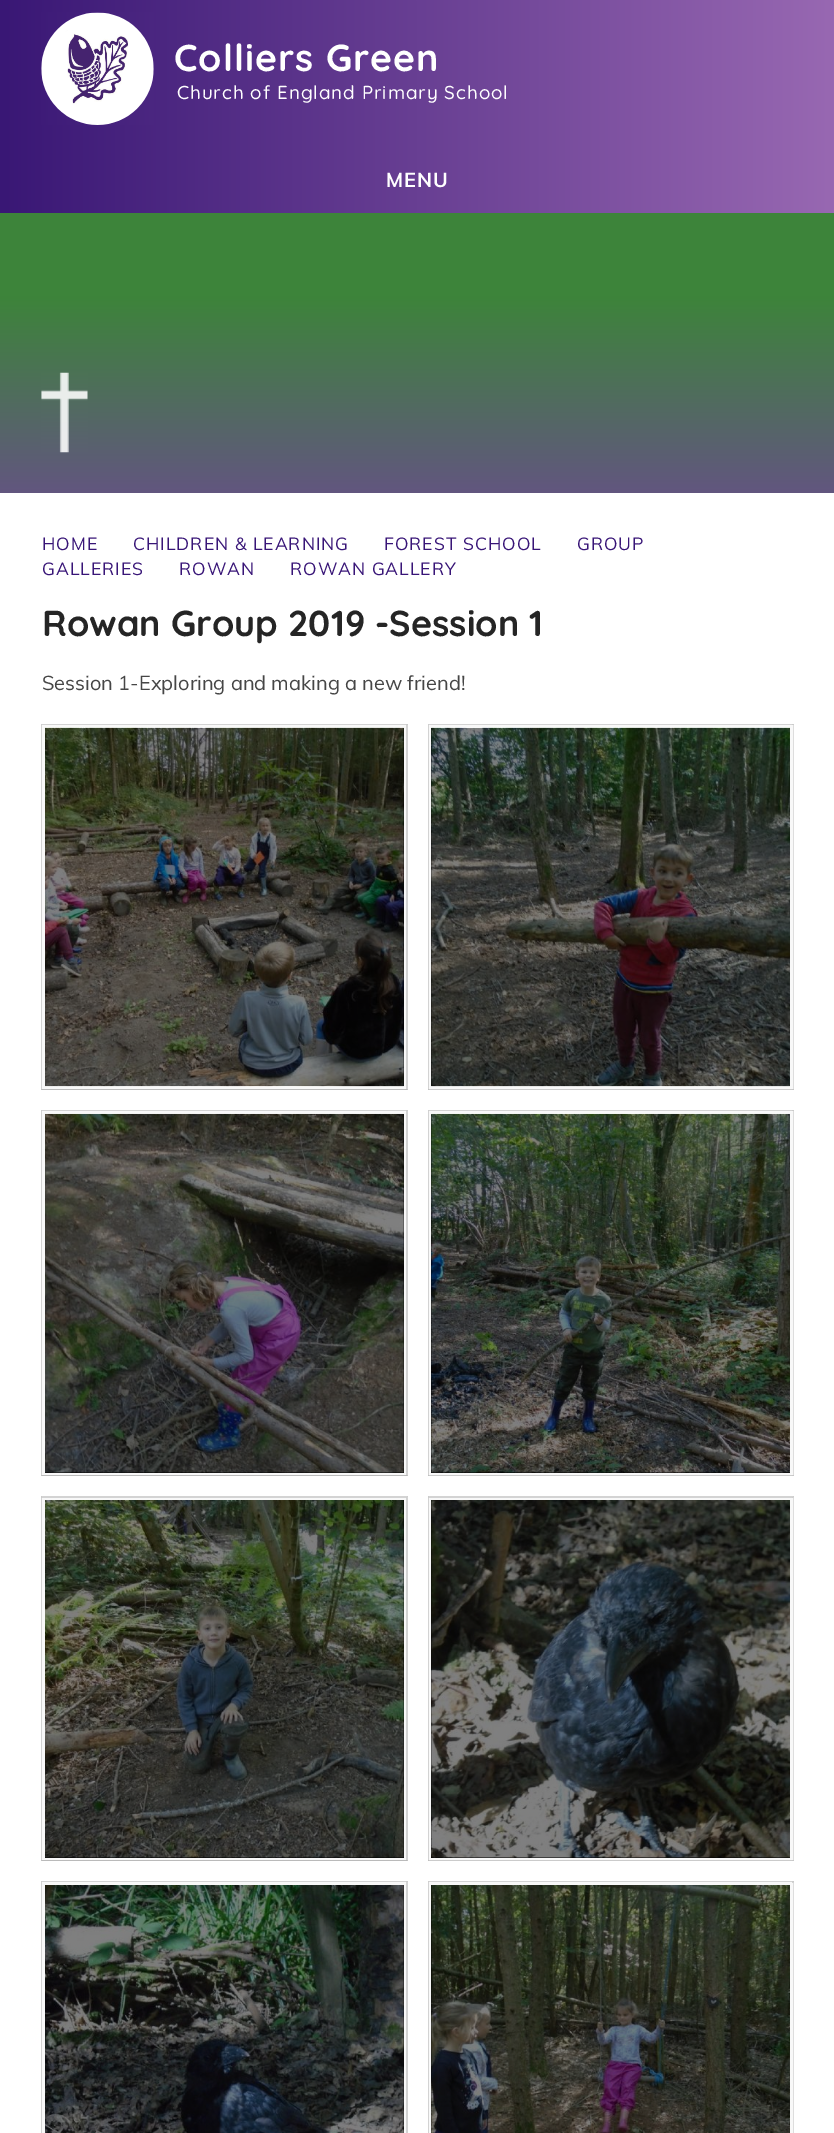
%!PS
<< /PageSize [834 2133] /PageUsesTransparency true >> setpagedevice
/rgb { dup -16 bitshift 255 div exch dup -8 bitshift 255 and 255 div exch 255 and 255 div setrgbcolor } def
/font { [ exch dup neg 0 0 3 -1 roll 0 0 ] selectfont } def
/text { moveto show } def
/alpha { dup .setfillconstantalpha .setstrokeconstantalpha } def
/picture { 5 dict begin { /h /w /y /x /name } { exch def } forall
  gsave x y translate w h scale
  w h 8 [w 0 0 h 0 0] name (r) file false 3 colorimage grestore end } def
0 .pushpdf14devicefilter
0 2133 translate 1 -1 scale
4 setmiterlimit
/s1 { /Quicksand-Bold 36 font 16#252525 rgb } def
/s2 { /Muli-Regular 20 font 16#464646 rgb } def
16#FFFFFF rgb
0 0 834 2133 rectfill
gsave 0 0 moveto 834 0 lineto 834 213 lineto 0 213 lineto closepath clip newpath
<< /ShadingType 2 /ColorSpace /DeviceRGB /Coords [0 106 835 106] /Extend [true true] /Function << /FunctionType 2 /Domain [0 1] /C0 [0.224 0.09 0.459] /C1 [0.596 0.408 0.698] /N 1 >> >> shfill grestore
(pic1.raw) 41 12 113 113 picture
/Quicksand-Bold 37.5 font
174 71 moveto 0.95 0 (Colliers Green) ashow
/Quicksand-Medium 18.75 font
177 99 moveto 0.95 0 (Church of England Primary School) ashow
/Muli-Bold 20 font
386 187 moveto 1 0 (MENU) ashow
16#3D843A rgb
0 213 834 83 rectfill
gsave 0 296 moveto 834 296 lineto 834 493 lineto 0 493 lineto closepath clip newpath
<< /ShadingType 2 /ColorSpace /DeviceRGB /Coords [418 296 418 493] /Extend [true true] /Function << /FunctionType 2 /Domain [0 1] /C0 [0.239 0.518 0.227] /C1 [0.384 0.337 0.498] /N 1 >> >> shfill grestore
(pic2.raw) 41 372 47 81 picture
/Muli-Regular 17.5 font
16#381577 rgb
42 550 moveto 1 0 (HOME) ashow
133 550 moveto 1 0 (CHILDREN & LEARNING) ashow
384 550 moveto 1 0 (FOREST SCHOOL) ashow
577 550 moveto 1 0 (GROUP) ashow
42 575 moveto 1 0 (GALLERIES) ashow
179 575 moveto 1 0 (ROWAN) ashow
290 575 moveto 1 0 (ROWAN GALLERY) ashow
s1
(Rowan Group 2019 -Session 1) 42 636 text
s2
(Session 1-Exploring and making a new friend!) 42 690 text
16#F8F8F8 rgb
41 724 367 366 rectfill
16#D3D3D3 rgb
41 724 moveto 408 724 lineto 406 725 lineto 42 725 lineto closepath fill
0.15 alpha
16#000000 rgb
408 724 moveto 408 1090 lineto 406 1089 lineto 406 725 lineto closepath fill
0.25 alpha
408 1090 moveto 41 1090 lineto 42 1089 lineto 406 1089 lineto closepath fill
0.15 alpha
41 1090 moveto 41 724 lineto 42 725 lineto 42 1089 lineto closepath fill
1 alpha
45 728 359 358 rectfill
(pic3.raw) 45 727 359 360 picture
16#F8F8F8 rgb
428 724 366 366 rectfill
16#D3D3D3 rgb
428 724 moveto 794 724 lineto 792 725 lineto 429 725 lineto closepath fill
0.15 alpha
16#000000 rgb
794 724 moveto 794 1090 lineto 792 1089 lineto 792 725 lineto closepath fill
0.25 alpha
794 1090 moveto 428 1090 lineto 429 1089 lineto 792 1089 lineto closepath fill
0.15 alpha
428 1090 moveto 428 724 lineto 429 725 lineto 429 1089 lineto closepath fill
1 alpha
16#F8F8F8 rgb
3 setlinewidth
430.5 726.5 361 361 rectstroke
16#000000 rgb
431 728 359 358 rectfill
(pic4.raw) 431 727 359 360 picture
16#F8F8F8 rgb
41 1110 367 366 rectfill
16#D3D3D3 rgb
41 1110 moveto 408 1110 lineto 406 1111 lineto 42 1111 lineto closepath fill
0.15 alpha
16#000000 rgb
408 1110 moveto 408 1476 lineto 406 1475 lineto 406 1111 lineto closepath fill
0.25 alpha
408 1476 moveto 41 1476 lineto 42 1475 lineto 406 1475 lineto closepath fill
0.15 alpha
41 1476 moveto 41 1110 lineto 42 1111 lineto 42 1475 lineto closepath fill
1 alpha
45 1114 359 359 rectfill
(pic5.raw) 45 1113 359 360 picture
16#F8F8F8 rgb
428 1110 366 366 rectfill
16#D3D3D3 rgb
428 1110 moveto 794 1110 lineto 792 1111 lineto 429 1111 lineto closepath fill
0.15 alpha
16#000000 rgb
794 1110 moveto 794 1476 lineto 792 1475 lineto 792 1111 lineto closepath fill
0.25 alpha
794 1476 moveto 428 1476 lineto 429 1475 lineto 792 1475 lineto closepath fill
0.15 alpha
428 1476 moveto 428 1110 lineto 429 1111 lineto 429 1475 lineto closepath fill
1 alpha
16#F8F8F8 rgb
430.5 1112.5 361 361 rectstroke
16#000000 rgb
431 1114 359 359 rectfill
(pic6.raw) 431 1113 359 360 picture
16#F8F8F8 rgb
41 1496 367 365 rectfill
16#D3D3D3 rgb
41 1496 moveto 408 1496 lineto 406 1498 lineto 42 1498 lineto closepath fill
0.15 alpha
16#000000 rgb
408 1496 moveto 408 1861 lineto 406 1860 lineto 406 1498 lineto closepath fill
0.25 alpha
408 1861 moveto 41 1861 lineto 42 1860 lineto 406 1860 lineto closepath fill
0.15 alpha
41 1861 moveto 41 1496 lineto 42 1498 lineto 42 1860 lineto closepath fill
1 alpha
45 1500 359 358 rectfill
(pic7.raw) 45 1500 359 358 picture
16#F8F8F8 rgb
428 1496 366 365 rectfill
16#D3D3D3 rgb
428 1496 moveto 794 1496 lineto 792 1498 lineto 429 1498 lineto closepath fill
0.15 alpha
16#000000 rgb
794 1496 moveto 794 1861 lineto 792 1860 lineto 792 1498 lineto closepath fill
0.25 alpha
794 1861 moveto 428 1861 lineto 429 1860 lineto 792 1860 lineto closepath fill
0.15 alpha
428 1861 moveto 428 1496 lineto 429 1498 lineto 429 1860 lineto closepath fill
1 alpha
16#F8F8F8 rgb
430.5 1499.5 361 359 rectstroke
16#000000 rgb
431 1500 359 358 rectfill
(pic8.raw) 431 1500 359 358 picture
16#F8F8F8 rgb
41 1881 367 252 rectfill
16#D3D3D3 rgb
41 1881 moveto 408 1881 lineto 406 1882 lineto 42 1882 lineto closepath fill
0.15 alpha
16#000000 rgb
408 1881 moveto 408 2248 lineto 406 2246 lineto 406 1882 lineto closepath fill
41 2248 moveto 41 1881 lineto 42 1882 lineto 42 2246 lineto closepath fill
1 alpha
45 1885 359 248 rectfill
(pic9.raw) 45 1885 359 248 picture
16#F8F8F8 rgb
428 1881 366 252 rectfill
16#D3D3D3 rgb
428 1881 moveto 794 1881 lineto 792 1882 lineto 429 1882 lineto closepath fill
0.15 alpha
16#000000 rgb
794 1881 moveto 794 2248 lineto 792 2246 lineto 792 1882 lineto closepath fill
428 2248 moveto 428 1881 lineto 429 1882 lineto 429 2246 lineto closepath fill
1 alpha
16#F8F8F8 rgb
430.5 1884.5 361 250 rectstroke
16#000000 rgb
431 1885 359 248 rectfill
(pic10.raw) 431 1885 359 248 picture
.poppdf14devicefilter showpage
